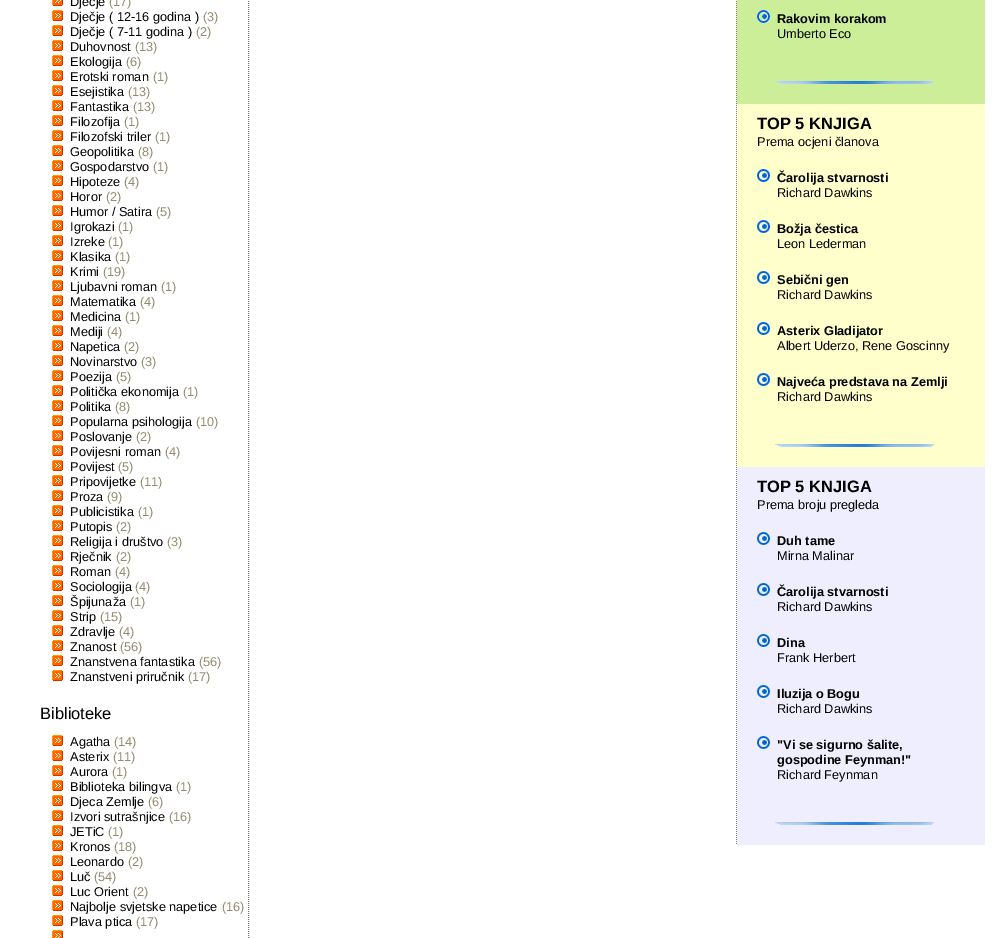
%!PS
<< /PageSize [993 938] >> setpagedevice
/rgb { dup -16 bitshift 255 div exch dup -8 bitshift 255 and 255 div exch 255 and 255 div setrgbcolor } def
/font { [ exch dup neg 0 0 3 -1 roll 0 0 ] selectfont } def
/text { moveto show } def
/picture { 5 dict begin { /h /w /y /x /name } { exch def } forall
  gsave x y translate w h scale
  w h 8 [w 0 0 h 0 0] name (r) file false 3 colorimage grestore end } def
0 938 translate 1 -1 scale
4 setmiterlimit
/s1 { /LiberationSans-Regular 12.75 font 16#000000 rgb } def
/s2 { /LiberationSans-Regular 12.75 font 16#948B6E rgb } def
/s3 { /LiberationSans-Regular 16.5 font 16#000000 rgb } def
/s4 { /LiberationSans-Bold 12.75 font 16#000000 rgb } def
/s5 { /LiberationSans-Bold 16.5 font 16#000000 rgb } def
16#FFFFFF rgb
0 0 993 938 rectfill
16#777777 rgb
[1 1] 0 setdash
248.5 -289 moveto 248.5 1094 lineto stroke
(pic1.raw) 52 0 11 6 picture
s1
(Dječje) 70 6 text
s2
(\(17\)) 109 6 text
(pic2.raw) 52 10 11 11 picture
s1
(Dječje \( 12-16 godina \)) 70 21 text
s2
(\(3\)) 203 21 text
(pic2.raw) 52 25 11 11 picture
s1
(Dječje \( 7-11 godina \)) 70 36 text
s2
(\(2\)) 196 36 text
(pic2.raw) 52 40 11 11 picture
s1
(Duhovnost) 70 51 text
s2
(\(13\)) 135 51 text
(pic2.raw) 52 55 11 11 picture
s1
(Ekologija) 70 66 text
s2
(\(6\)) 126 66 text
(pic2.raw) 52 70 11 11 picture
s1
(Erotski roman) 70 81 text
s2
(\(1\)) 153 81 text
(pic2.raw) 52 85 11 11 picture
s1
(Esejistika) 70 96 text
s2
(\(13\)) 128 96 text
(pic2.raw) 52 100 11 11 picture
s1
(Fantastika) 70 111 text
s2
(\(13\)) 133 111 text
(pic2.raw) 52 115 11 11 picture
s1
(Filozofija) 70 126 text
s2
(\(1\)) 124 126 text
(pic2.raw) 52 130 11 11 picture
s1
(Filozofski triler) 70 141 text
s2
(\(1\)) 155 141 text
(pic2.raw) 52 145 11 11 picture
s1
(Geopolitika) 70 156 text
s2
(\(8\)) 138 156 text
(pic2.raw) 52 160 11 11 picture
s1
(Gospodarstvo) 70 171 text
s2
(\(1\)) 153 171 text
(pic2.raw) 52 175 11 11 picture
s1
(Hipoteze) 70 186 text
s2
(\(4\)) 124 186 text
(pic2.raw) 52 190 11 11 picture
s1
(Horor) 70 201 text
s2
(\(2\)) 106 201 text
(pic2.raw) 52 205 11 11 picture
s1
(Humor / Satira) 70 216 text
s2
(\(5\)) 156 216 text
(pic2.raw) 52 220 11 11 picture
s1
(Igrokazi) 70 231 text
s2
(\(1\)) 118 231 text
(pic2.raw) 52 235 11 11 picture
s1
(Izreke) 70 246 text
s2
(\(1\)) 108 246 text
(pic2.raw) 52 250 11 11 picture
s1
(Klasika) 70 261 text
s2
(\(1\)) 115 261 text
(pic2.raw) 52 265 11 11 picture
s1
(Krimi) 70 276 text
s2
(\(19\)) 103 276 text
(pic2.raw) 52 280 11 11 picture
s1
(Ljubavni roman) 70 291 text
s2
(\(1\)) 161 291 text
(pic2.raw) 52 295 11 11 picture
s1
(Matematika) 70 306 text
s2
(\(4\)) 140 306 text
(pic2.raw) 52 310 11 11 picture
s1
(Medicina) 70 321 text
s2
(\(1\)) 125 321 text
(pic2.raw) 52 325 11 11 picture
s1
(Mediji) 70 336 text
s2
(\(4\)) 107 336 text
(pic2.raw) 52 340 11 11 picture
s1
(Napetica) 70 351 text
s2
(\(2\)) 124 351 text
(pic2.raw) 52 355 11 11 picture
s1
(Novinarstvo) 70 366 text
s2
(\(3\)) 141 366 text
(pic2.raw) 52 370 11 11 picture
s1
(Poezija) 70 381 text
s2
(\(5\)) 116 381 text
(pic2.raw) 52 385 11 11 picture
s1
(Politička ekonomija) 70 396 text
s2
(\(1\)) 183 396 text
(pic2.raw) 52 400 11 11 picture
s1
(Politika) 70 411 text
s2
(\(8\)) 115 411 text
(pic2.raw) 52 415 11 11 picture
s1
(Popularna psihologija) 70 426 text
s2
(\(10\)) 196 426 text
(pic2.raw) 52 430 11 11 picture
s1
(Poslovanje) 70 441 text
s2
(\(2\)) 136 441 text
(pic2.raw) 52 445 11 11 picture
s1
(Povijesni roman) 70 456 text
s2
(\(4\)) 165 456 text
(pic2.raw) 52 460 11 11 picture
s1
(Povijest) 70 471 text
s2
(\(5\)) 118 471 text
(pic2.raw) 52 475 11 11 picture
s1
(Pripovijetke) 70 486 text
s2
(\(11\)) 140 486 text
(pic2.raw) 52 490 11 11 picture
s1
(Proza) 70 501 text
s2
(\(9\)) 107 501 text
(pic2.raw) 52 505 11 11 picture
s1
(Publicistika) 70 516 text
s2
(\(1\)) 138 516 text
(pic2.raw) 52 520 11 11 picture
s1
(Putopis) 70 531 text
s2
(\(2\)) 116 531 text
(pic2.raw) 52 535 11 11 picture
s1
(Religija i društvo) 70 546 text
s2
(\(3\)) 167 546 text
(pic2.raw) 52 550 11 11 picture
s1
(Rječnik) 70 561 text
s2
(\(2\)) 116 561 text
(pic2.raw) 52 565 11 11 picture
s1
(Roman) 70 576 text
s2
(\(4\)) 115 576 text
(pic2.raw) 52 580 11 11 picture
s1
(Sociologija) 70 591 text
s2
(\(4\)) 135 591 text
(pic2.raw) 52 595 11 11 picture
s1
(Špijunaža) 70 606 text
s2
(\(1\)) 130 606 text
(pic2.raw) 52 610 11 11 picture
s1
(Strip) 70 621 text
s2
(\(15\)) 100 621 text
(pic2.raw) 52 625 11 11 picture
s1
(Zdravlje) 70 636 text
s2
(\(4\)) 119 636 text
(pic2.raw) 52 640 11 11 picture
s1
(Znanost) 70 651 text
s2
(\(56\)) 120 651 text
(pic2.raw) 52 655 11 11 picture
s1
(Znanstvena fantastika) 70 666 text
s2
(\(56\)) 199 666 text
(pic2.raw) 52 670 11 11 picture
s1
(Znanstveni priručnik) 70 681 text
s2
(\(17\)) 188 681 text
s3
(Biblioteke) 40 719 text
(pic2.raw) 52 735 11 11 picture
s1
(Agatha) 70 746 text
s2
(\(14\)) 114 746 text
(pic2.raw) 52 750 11 11 picture
s1
(Asterix) 70 761 text
s2
(\(11\)) 113 761 text
(pic2.raw) 52 765 11 11 picture
s1
(Aurora) 70 776 text
s2
(\(1\)) 112 776 text
(pic2.raw) 52 780 11 11 picture
s1
(Biblioteka bilingva) 70 791 text
s2
(\(1\)) 176 791 text
(pic2.raw) 52 795 11 11 picture
s1
(Djeca Zemlje) 70 806 text
s2
(\(6\)) 148 806 text
(pic2.raw) 52 810 11 11 picture
s1
(Izvori sutrašnjice) 70 821 text
s2
(\(16\)) 169 821 text
(pic2.raw) 52 825 11 11 picture
s1
(JETiC) 70 836 text
s2
(\(1\)) 108 836 text
(pic2.raw) 52 840 11 11 picture
s1
(Kronos) 70 851 text
s2
(\(18\)) 114 851 text
(pic2.raw) 52 855 11 11 picture
s1
(Leonardo) 70 866 text
s2
(\(2\)) 128 866 text
(pic2.raw) 52 870 11 11 picture
s1
(Luč) 70 881 text
s2
(\(54\)) 94 881 text
(pic2.raw) 52 885 11 11 picture
s1
(Luc Orient) 70 896 text
s2
(\(2\)) 133 896 text
(pic2.raw) 52 900 11 11 picture
s1
(Najbolje svjetske napetice) 70 911 text
s2
(\(16\)) 222 911 text
(pic2.raw) 52 915 11 11 picture
s1
(Plava ptica) 70 926 text
s2
(\(17\)) 136 926 text
(pic3.raw) 52 930 11 8 picture
16#777777 rgb
736.5 -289 moveto 736.5 845 lineto stroke
16#CCEE99 rgb
737 0 248 104 rectfill
(pic4.raw) 757 10 13 13 picture
s4
(Rakovim korakom) 777 23 text
s1
(Umberto Eco) 777 38 text
(pic5.raw) 775 81 159 3 picture
16#FFFFCC rgb
737 104 248 363 rectfill
s5
(TOP 5 KNJIGA) 757 129 text
s1
(Prema ocjeni članova) 757 146 text
(pic6.raw) 757 169 13 13 picture
s4
(Čarolija stvarnosti) 777 182 text
s1
(Richard Dawkins) 777 197 text
(pic6.raw) 757 220 13 13 picture
s4
(Božja čestica) 777 233 text
s1
(Leon Lederman) 777 248 text
(pic6.raw) 757 271 13 13 picture
s4
(Sebični gen) 777 284 text
s1
(Richard Dawkins) 777 299 text
(pic6.raw) 757 322 13 13 picture
s4
(Asterix Gladijator) 777 335 text
s1
(Albert Uderzo, Rene Goscinny) 777 350 text
(pic6.raw) 757 373 13 13 picture
s4
(Najveća predstava na Zemlji) 777 386 text
s1
(Richard Dawkins) 777 401 text
(pic7.raw) 775 444 159 3 picture
16#EEEEFF rgb
737 467 248 378 rectfill
s5
(TOP 5 KNJIGA) 757 492 text
s1
(Prema broju pregleda) 757 509 text
(pic8.raw) 757 532 13 13 picture
s4
(Duh tame) 777 545 text
s1
(Mirna Malinar) 777 560 text
(pic8.raw) 757 583 13 13 picture
s4
(Čarolija stvarnosti) 777 596 text
s1
(Richard Dawkins) 777 611 text
(pic8.raw) 757 634 13 13 picture
s4
(Dina) 777 647 text
s1
(Frank Herbert) 777 662 text
(pic8.raw) 757 685 13 13 picture
s4
(Iluzija o Bogu) 777 698 text
s1
(Richard Dawkins) 777 713 text
(pic8.raw) 757 736 13 13 picture
s4
("Vi se sigurno šalite,) 777 749 text
(gospodine Feynman!") 777 764 text
s1
(Richard Feynman) 777 779 text
(pic9.raw) 775 822 159 3 picture
showpage
